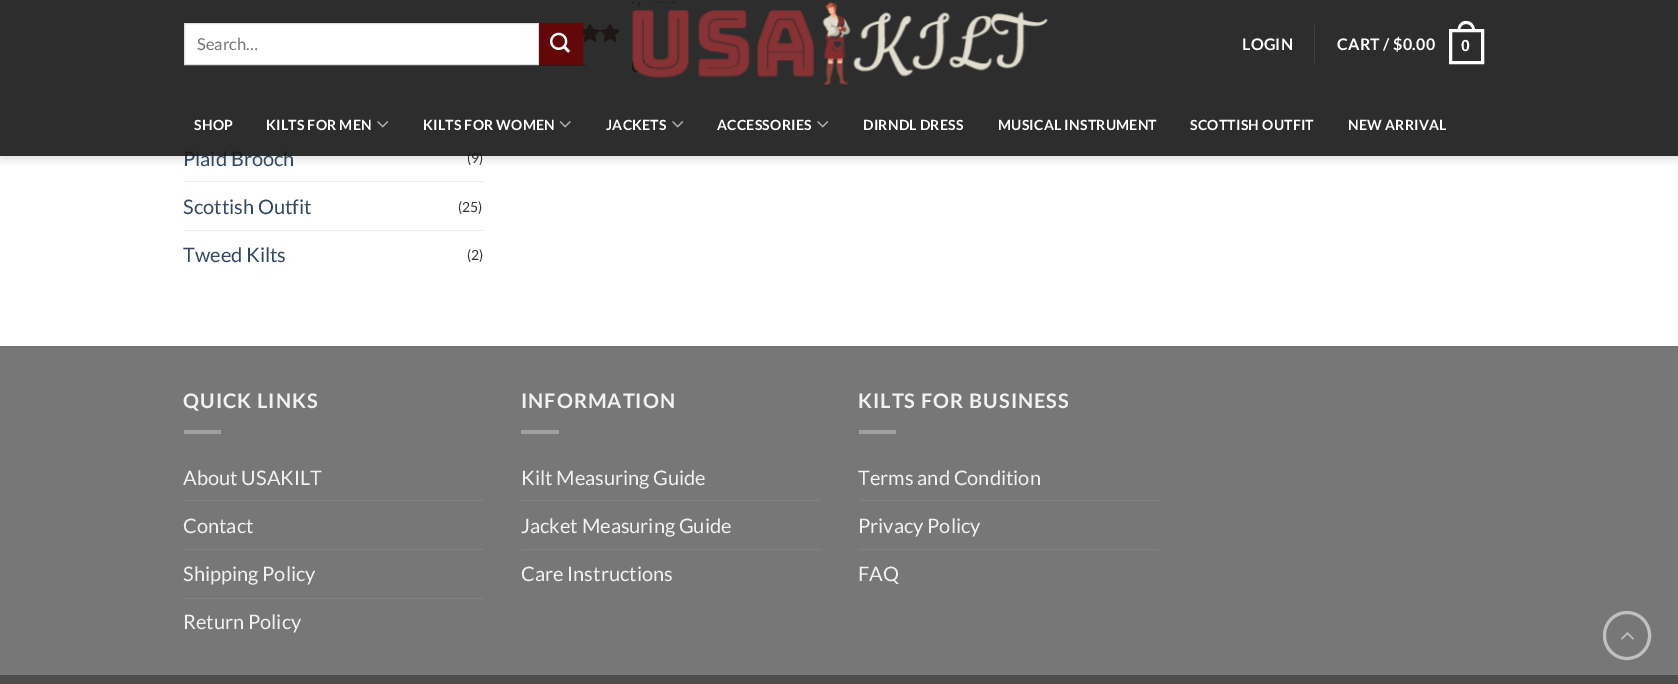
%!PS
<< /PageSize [1678 684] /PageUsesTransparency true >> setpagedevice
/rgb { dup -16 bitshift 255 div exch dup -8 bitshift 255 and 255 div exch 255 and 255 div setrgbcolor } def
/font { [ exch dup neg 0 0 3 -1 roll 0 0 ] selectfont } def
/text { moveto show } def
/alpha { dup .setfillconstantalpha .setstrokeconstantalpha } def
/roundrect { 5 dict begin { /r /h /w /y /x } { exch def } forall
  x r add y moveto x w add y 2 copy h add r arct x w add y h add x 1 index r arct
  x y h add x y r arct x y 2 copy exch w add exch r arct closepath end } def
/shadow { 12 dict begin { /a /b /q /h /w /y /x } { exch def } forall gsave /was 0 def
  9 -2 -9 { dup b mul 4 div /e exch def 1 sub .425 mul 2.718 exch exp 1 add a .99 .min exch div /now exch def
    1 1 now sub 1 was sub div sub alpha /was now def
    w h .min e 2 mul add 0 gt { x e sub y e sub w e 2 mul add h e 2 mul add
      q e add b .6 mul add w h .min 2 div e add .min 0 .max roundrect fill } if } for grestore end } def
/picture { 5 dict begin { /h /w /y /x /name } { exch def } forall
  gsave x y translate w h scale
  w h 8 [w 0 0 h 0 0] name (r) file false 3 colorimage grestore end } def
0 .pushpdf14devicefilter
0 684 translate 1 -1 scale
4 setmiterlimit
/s1 { /Lato-Regular 20 font 16#334862 rgb } def
/s2 { /Lato-Regular 14 font 16#333333 rgb } def
/s3 { /Lato-Regular 16.5 font 16#757575 rgb } def
/s4 { /Lato-Regular 20 font 16#F1F1F1 rgb } def
16#FFFFFF rgb
0 0 1678 684 rectfill
(pic5.raw) 583 23 37 19 picture
(pic6.raw) 583 23 37 19 picture
16#666666 rgb
520 65 66 1 rectfill
16#ECECEC rgb
184 85 300 1 rectfill
184 134 300 1 rectfill
gsave
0 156 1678 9 rectclip
16#000000 rgb
1 1 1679 157 0 6 0.15 shadow
grestore
s1
(Plaid Brooch) 183 166 text
s2
(\(9\)) 467 163 text
0.9 alpha
16#161616 rgb
0 0 1678 156 rectfill
1 alpha
16#FFFFFF rgb
184.5 23.5 moveto 538.5 23.5 lineto 538.5 64.5 lineto 184.5 64.5 lineto closepath gsave fill grestore
16#DDDDDD rgb
stroke
s3
(Search…) 197 50 text
16#630808 rgb
539.5 23.5 moveto 582.5 23.5 lineto 582.5 64.5 lineto 539.5 64.5 lineto closepath gsave fill grestore
16#5E0808 rgb
stroke
(pic1.raw) 550 32 20 21 picture
(pic2.raw) 632 2 416 83 picture
/Lato-Bold 16 font
16#FFFFFF rgb
1242 50 moveto 0.25 0 (LOGIN) ashow
16#424242 rgb
1314 25 1 38 rectfill
16#FFFFFF rgb
1337 50 moveto 0.25 0 (CART / $0.00) ashow
3 setlinewidth
1450.5 30.5 32 32 rectstroke
1466 21 moveto 1472 21 1475 26 1475 31 curveto 1457.5 31 lineto 1457.5 26 1460.5 21 1466 21 curveto closepath 1466 24 moveto 1470.5 24 1472.5 27.5 1472.5 31 curveto 1460 31 lineto 1460 27.5 1462 24 1466 24 curveto closepath eofill
/LiberationSans-Bold 16 font
1461 51 moveto 0.25 0 (0) ashow
/Lato-Bold 14 font
194 130 moveto 0.25 0 (SHOP) ashow
266 130 moveto 0.25 0 (KILTS FOR MEN) ashow
(pic3.raw) 377 121 12 7 picture
423 130 moveto 0.25 0 (KILTS FOR WOMEN) ashow
(pic4.raw) 559 121 12 7 picture
606 130 moveto 0.25 0 (JACKETS) ashow
(pic3.raw) 672 121 12 7 picture
717 130 moveto 0.25 0 (ACCESSORIES) ashow
(pic3.raw) 817 121 12 7 picture
863 130 moveto 0.25 0 (DIRNDL DRESS) ashow
998 130 moveto 0.25 0 (MUSICAL INSTRUMENT) ashow
1190 130 moveto 0.25 0 (SCOTTISH OUTFIT) ashow
1348 130 moveto 0.25 0 (NEW ARRIVAL) ashow
16#ECECEC rgb
184 181 300 1 rectfill
s1
(Scottish Outfit) 183 214 text
s2
(\(25\)) 458 212 text
16#ECECEC rgb
184 230 300 1 rectfill
s1
(Tweed Kilts) 183 262 text
s2
(\(2\)) 467 260 text
16#777777 rgb
0 347 1678 328 rectfill
16#717171 rgb
0 346 1678 1 rectfill
/Lato-Bold 20 font
16#F1F1F1 rgb
183 408 moveto 1 0 (QUICK LINKS) ashow
16#A0A0A0 rgb
184 430 37 4 rectfill
s4
(About USAKILT) 183 485 text
16#828282 rgb
184 500 300 1 rectfill
s4
(Contact) 183 533 text
16#828282 rgb
184 549 300 1 rectfill
s4
(Shipping Policy) 183 581 text
16#828282 rgb
184 598 300 1 rectfill
s4
(Return Policy) 183 629 text
/Lato-Bold 20 font
521 408 moveto 1 0 (INFORMATION) ashow
16#A0A0A0 rgb
521 430 38 4 rectfill
s4
(Kilt Measuring Guide) 521 485 text
16#828282 rgb
521 500 300 1 rectfill
s4
(Jacket Measuring Guide) 521 533 text
16#828282 rgb
521 549 300 1 rectfill
s4
(Care Instructions) 521 581 text
/Lato-Bold 20 font
858 408 moveto 1 0 (KILTS FOR BUSINESS) ashow
16#A0A0A0 rgb
859 430 37 4 rectfill
s4
(Terms and Condition) 858 485 text
16#828282 rgb
859 500 300 1 rectfill
s4
(Privacy Policy) 858 533 text
16#828282 rgb
859 549 300 1 rectfill
s4
(FAQ) 858 581 text
16#C0C0C0 rgb
1604.5 612.5 45 46 22.5 roundrect stroke
(pic7.raw) 1621 632 13 8 picture
16#4D4D4D rgb
0 675 1678 9 rectfill
.poppdf14devicefilter showpage
